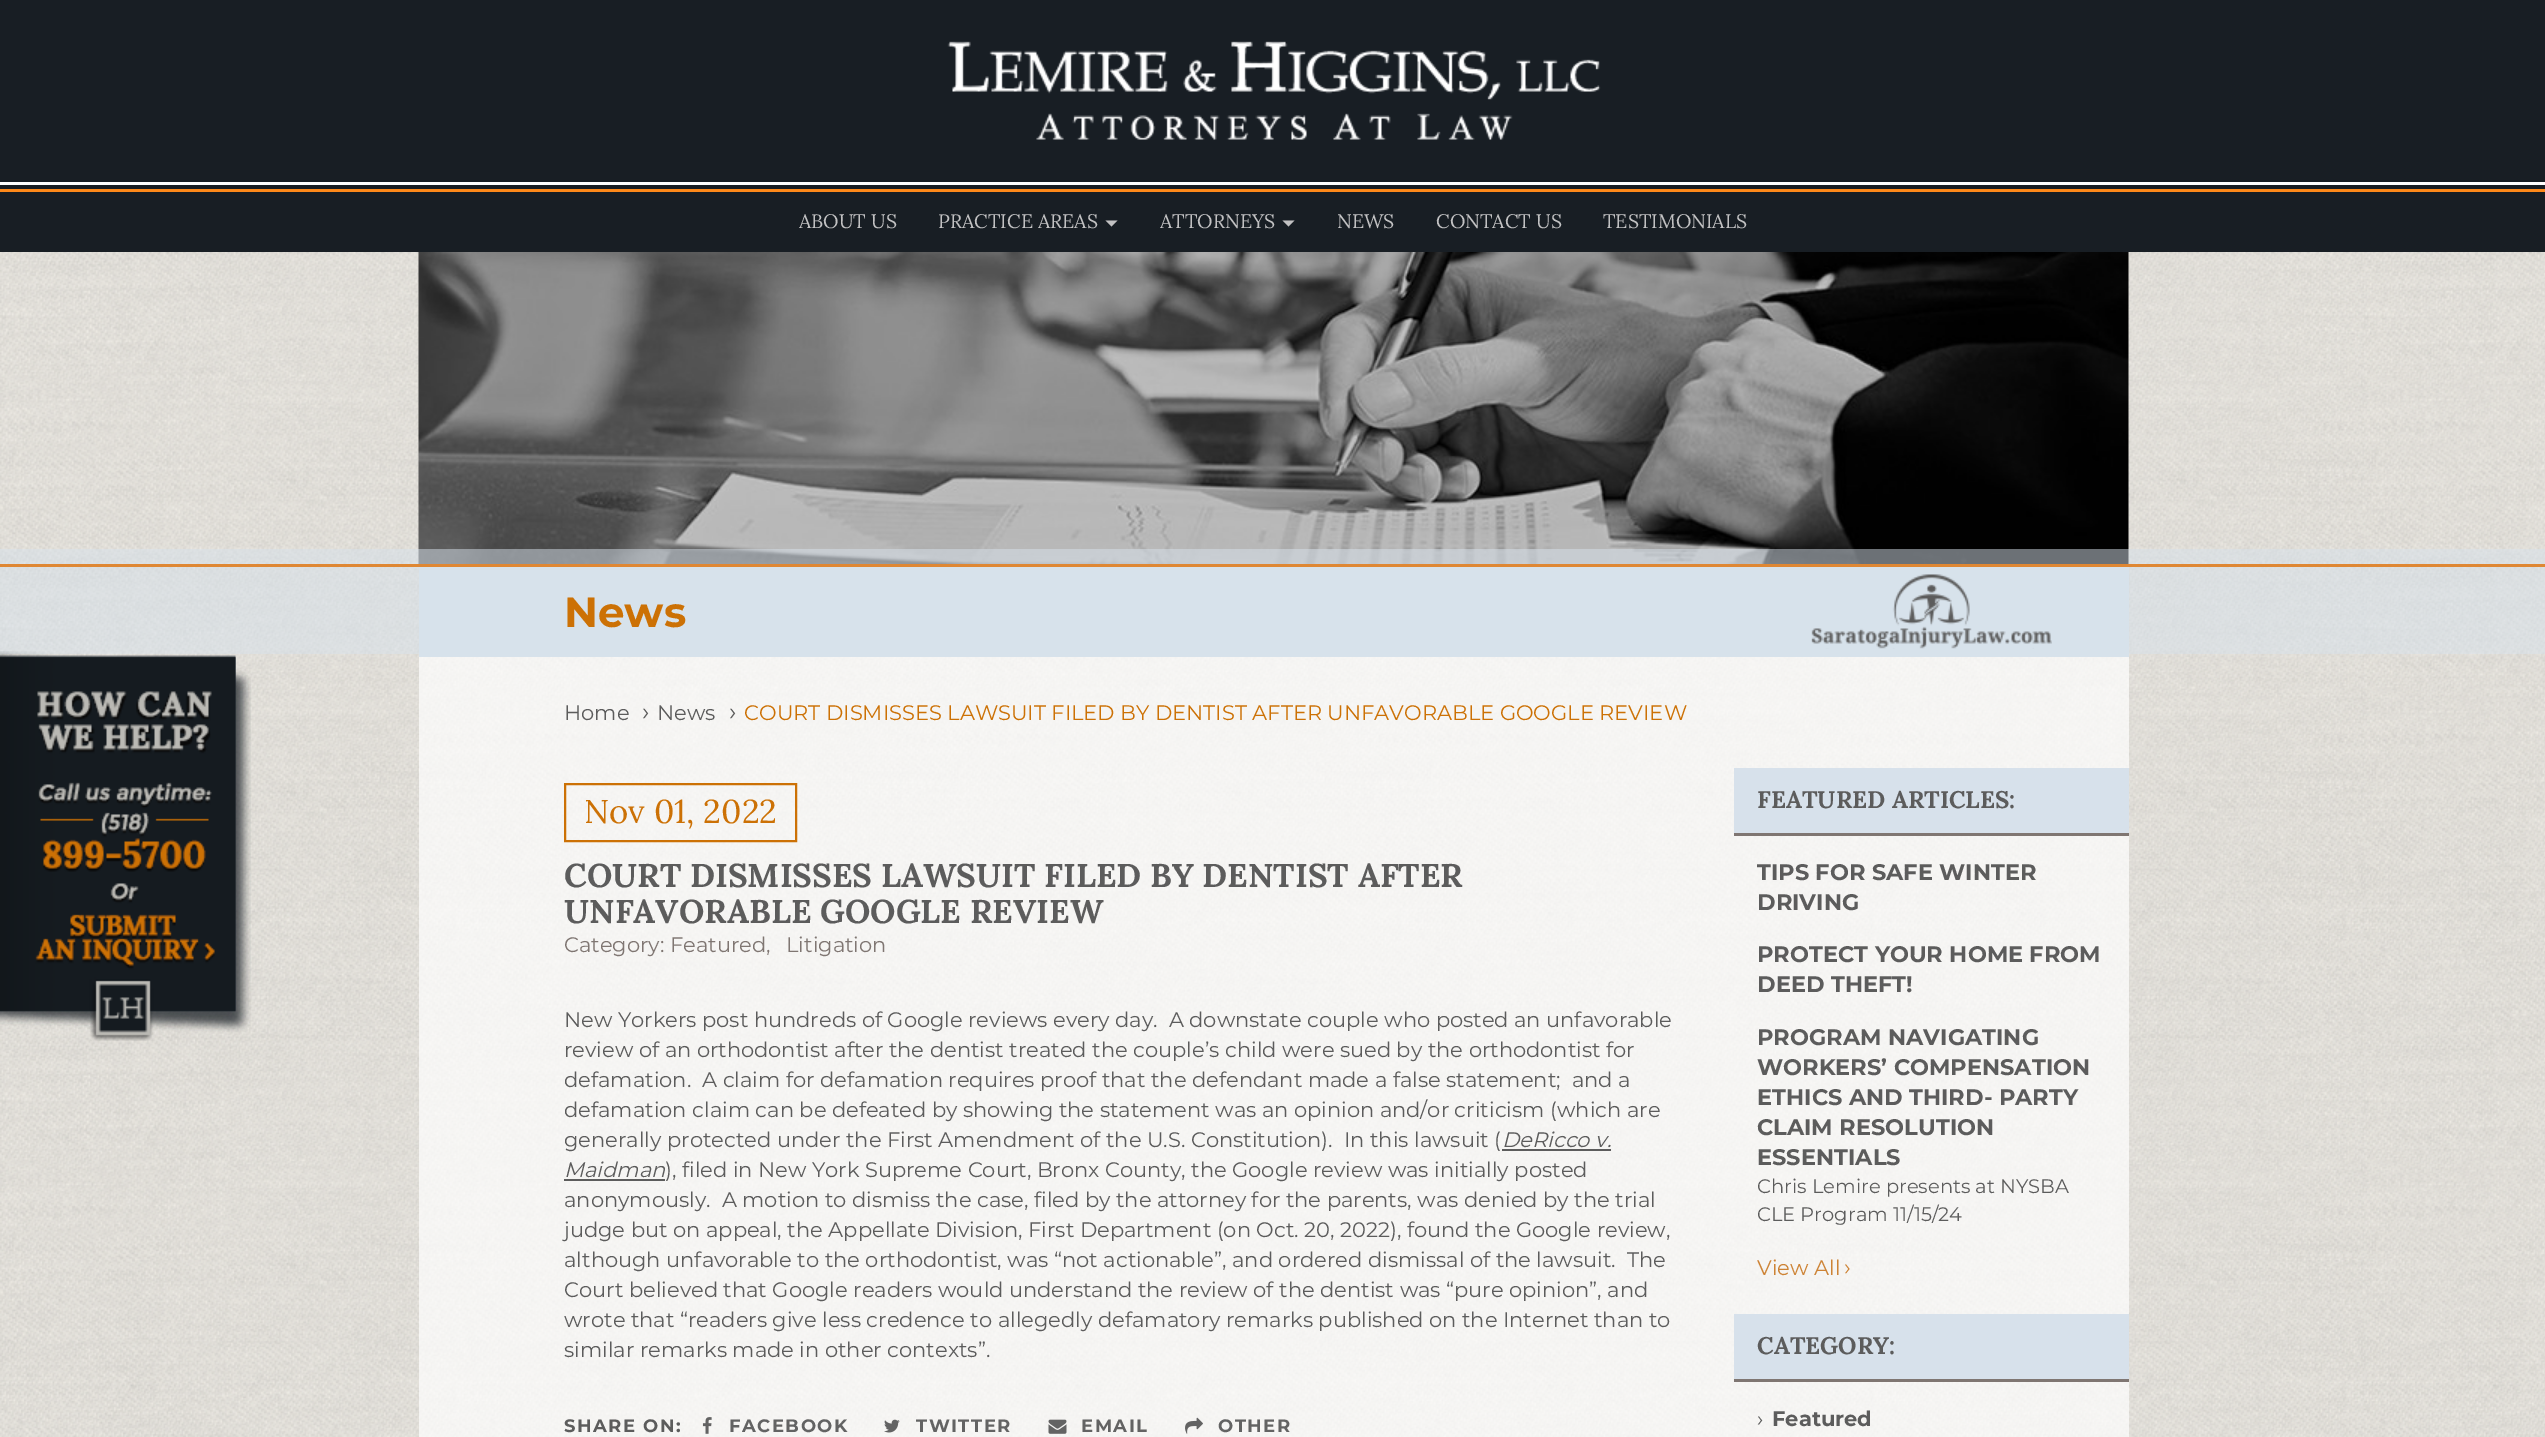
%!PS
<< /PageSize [2545 1437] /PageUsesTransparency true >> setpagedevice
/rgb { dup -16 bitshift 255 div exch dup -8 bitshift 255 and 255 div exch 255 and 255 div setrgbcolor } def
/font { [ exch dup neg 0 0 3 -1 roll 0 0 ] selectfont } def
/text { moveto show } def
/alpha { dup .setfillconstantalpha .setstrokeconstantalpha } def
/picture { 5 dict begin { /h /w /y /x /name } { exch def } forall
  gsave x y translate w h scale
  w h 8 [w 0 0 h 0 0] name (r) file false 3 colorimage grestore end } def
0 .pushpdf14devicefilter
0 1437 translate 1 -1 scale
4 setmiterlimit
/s1 { /Lora-Regular 19.5 font 16#C2C2C3 rgb } def
/s2 { /Montserrat-Bold 42 font 16#CC7105 rgb } def
/s3 { /Montserrat-Regular 21 font 16#5C5C5C rgb } def
/s4 { /Montserrat-Regular 25 font 16#5C5C5C rgb } def
/s5 { /Montserrat-Regular 21 font 16#CC7105 rgb } def
/s6 { /Lora-Regular 33 font 16#CC7105 rgb } def
/s7 { /Lora-Bold 33 font 16#5C5C5C rgb } def
/s8 { /Montserrat-Regular 21 font 16#7F7672 rgb } def
/s9 { /Montserrat-Italic 21 font 16#5C5C5C rgb } def
/s10 { /Lora-Bold 24 font 16#5C5C5C rgb } def
/s11 { /Montserrat-Bold 22.5 font 16#5C5C5C rgb } def
/s12 { /Montserrat-Regular 19.5 font 16#5C5C5C rgb } def
/s13 { /Montserrat-Regular 21 font 16#CD8335 rgb } def
/s14 { /Montserrat-Regular 23 font 16#CD8335 rgb } def
/s15 { /Montserrat-Bold 21 font 16#5C5C5C rgb } def
16#181E24 rgb
0 0 2545 1437 rectfill
(pic1.raw) 947 41 654 99 picture
16#FFFFFF rgb
0 182 2545 3 rectfill
16#FE891A rgb
0 189 2545 3 rectfill
s1
(ABOUT US) 799 228 text
(PRACTICE AREAS) 938 228 text
1105.5 220.5 moveto 1117.5 220.5 lineto 1111.5 226.5 lineto closepath fill
(ATTORNEYS) 1160 228 text
1282.5 220.5 moveto 1294.5 220.5 lineto 1288.5 226.5 lineto closepath fill
(NEWS) 1337 228 text
(CONTACT US) 1436 228 text
(TESTIMONIALS) 1603 228 text
(pic2.raw) 0 252 2545 312 picture
(pic3.raw) 418 252 1711 312 picture
(pic4.raw) 0 567 2545 870 picture
0.5 alpha
16#D7E1EB rgb
0 549 2545 105 rectfill
1 alpha
16#DF8733 rgb
0 564 2545 3 rectfill
(pic5.raw) 0 651 251 390 picture
(pic6.raw) 0 651 251 390 picture
0.7 alpha
16#FFFFFF rgb
419 657 1710 780 rectfill
1 alpha
16#D7E2EB rgb
419 567 1710 90 rectfill
s2
(News) 564 627 text
(pic7.raw) 1811 574 241 75 picture
s3
(Home) 564 720 text
s4
(›) 642 720 text
s3
(News) 657 720 text
s4
(›) 729 720 text
s5
(COURT DISMISSES LAWSUIT FILED BY DENTIST AFTER UNFAVORABLE GOOGLE REVIEW) 744 720 text
2 setlinewidth
565 784 231 57 rectstroke
s6
(Nov 01, 2022) 584 823 text
s7
(COURT DISMISSES LAWSUIT FILED BY DENTIST AFTER) 564 887 text
(UNFAVORABLE GOOGLE REVIEW) 564 923 text
s8
(Category: Featured,) 564 952 text
(Litigation) 786 952 text
s3
(New Yorkers post hundreds of Google reviews every day.  A downstate couple who posted an unfavorable) 564 1027 text
(review of an orthodontist after the dentist treated the couple’s child were sued by the orthodontist for) 564 1057 text
(defamation.  A claim for defamation requires proof that the defendant made a false statement;  and a) 564 1087 text
(defamation claim can be defeated by showing the statement was an opinion and/or criticism \(which are) 564 1117 text
(generally protected under the First Amendment of the U.S. Constitution\).  In this lawsuit \() 564 1147 text
s9
(DeRicco v.) 1502 1147 text
1502 1149 109 2 rectfill
(Maidman) 564 1177 text
564 1179 101 2 rectfill
s3
(\), filed in New York Supreme Court, Bronx County, the Google review was initially posted) 665 1177 text
(anonymously.  A motion to dismiss the case, filed by the attorney for the parents, was denied by the trial) 564 1207 text
(judge but on appeal, the Appellate Division, First Department \(on Oct. 20, 2022\), found the Google review,) 564 1237 text
(although unfavorable to the orthodontist, was “not actionable”, and ordered dismissal of the lawsuit.  The) 564 1267 text
(Court believed that Google readers would understand the review of the dentist was “pure opinion”, and) 564 1297 text
(wrote that “readers give less credence to allegedly defamatory remarks published on the Internet than to) 564 1327 text
(similar remarks made in other contexts”.) 564 1357 text
/Montserrat-Bold 18 font
564 1432 moveto 1.5 0 (SHARE ON:) ashow
(pic8.raw) 702 1417 10 17 picture
16#636363 rgb
729 1432 moveto 1.5 0 (FACEBOOK) ashow
(pic9.raw) 884 1419 16 14 picture
916 1432 moveto 1.5 0 (TWITTER) ashow
(pic10.raw) 1048 1419 19 15 picture
1081 1432 moveto 1.5 0 (EMAIL) ashow
(pic11.raw) 1185 1417 18 17 picture
1218 1432 moveto 1.5 0 (OTHER) ashow
16#D7E1EB rgb
1734 768 395 65 rectfill
16#7F7672 rgb
1734 833 395 3 rectfill
s10
(FEATURED ARTICLES:) 1757 808 text
s11
(TIPS FOR SAFE WINTER) 1757 880 text
(DRIVING) 1757 910 text
(PROTECT YOUR HOME FROM) 1757 962 text
(DEED THEFT!) 1757 992 text
(PROGRAM NAVIGATING) 1757 1045 text
(WORKERS’ COMPENSATION) 1757 1075 text
(ETHICS AND THIRD- PARTY) 1757 1105 text
(CLAIM RESOLUTION) 1757 1135 text
(ESSENTIALS) 1757 1165 text
s12
(Chris Lemire presents at NYSBA) 1757 1193 text
(CLE Program 11/15/24) 1757 1221 text
s13
(View All) 1757 1275 text
s14
(›) 1844 1275 text
16#D7E1EB rgb
1734 1314 395 65 rectfill
16#7F7672 rgb
1734 1379 395 3 rectfill
s10
(CATEGORY:) 1757 1354 text
s3
(›) 1757 1426 text
s15
(Featured) 1772 1426 text
.poppdf14devicefilter showpage
